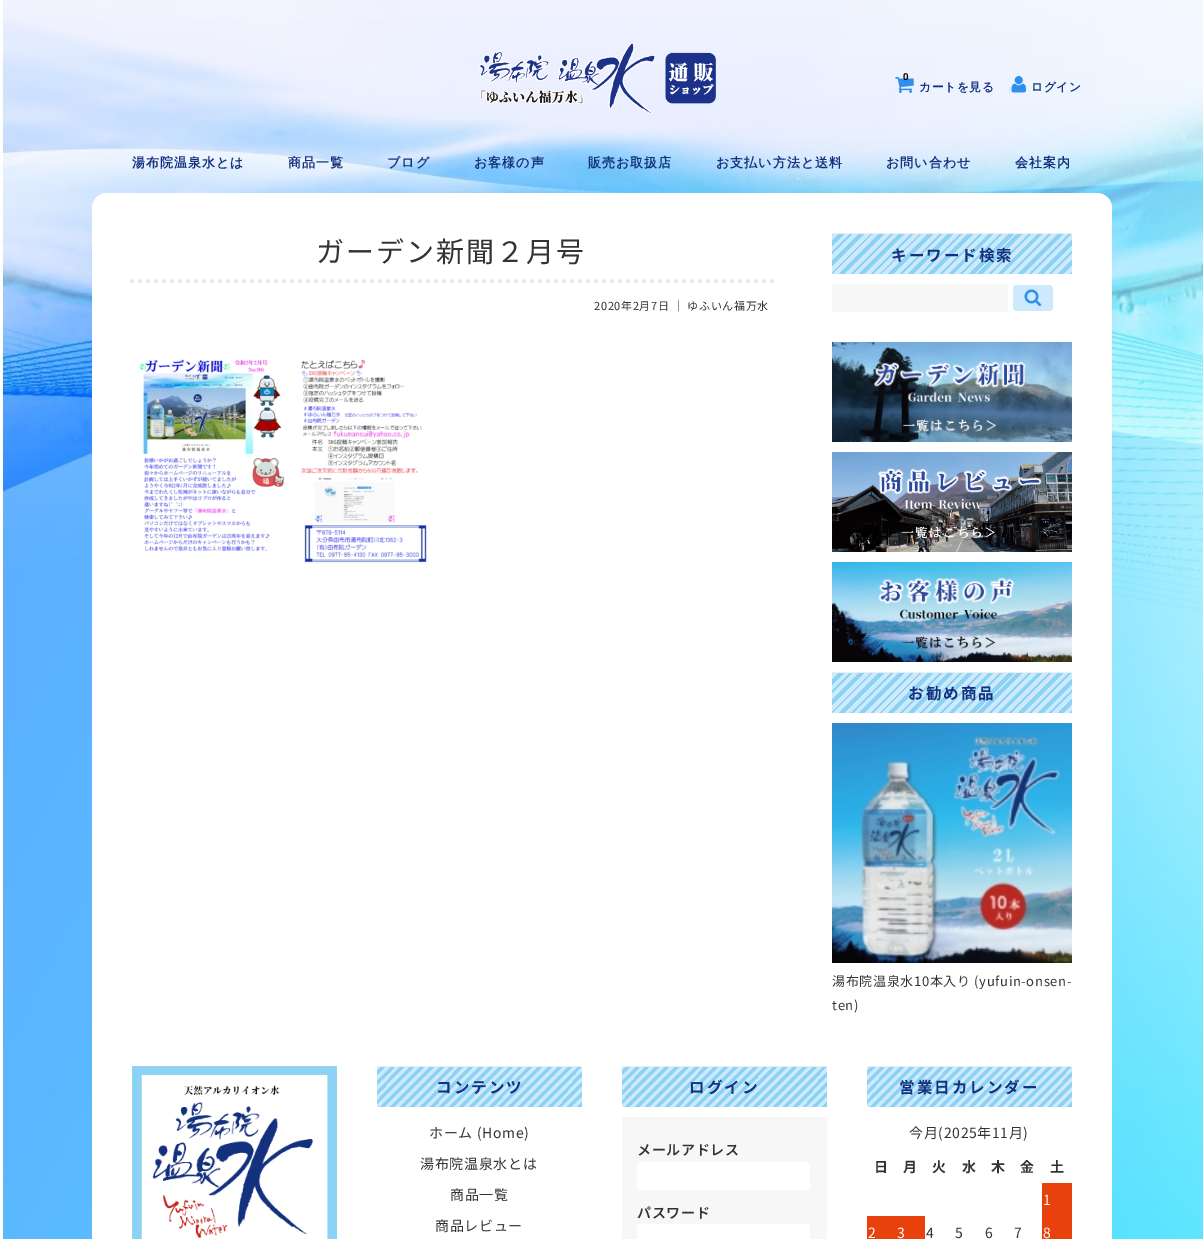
%!PS
<< /PageSize [1203 1239] >> setpagedevice
/rgb { dup -16 bitshift 255 div exch dup -8 bitshift 255 and 255 div exch 255 and 255 div setrgbcolor } def
/font { [ exch dup neg 0 0 3 -1 roll 0 0 ] selectfont } def
/roundrect { 5 dict begin { /r /h /w /y /x } { exch def } forall
  x r add y moveto x w add y 2 copy h add r arct x w add y h add x 1 index r arct
  x y h add x y r arct x y 2 copy exch w add exch r arct closepath end } def
/picture { 5 dict begin { /h /w /y /x /name } { exch def } forall
  gsave x y translate w h scale
  w h 8 [w 0 0 h 0 0] name (r) file false 3 colorimage grestore end } def
0 1239 translate 1 -1 scale
4 setmiterlimit
16#FFFFFF rgb
0 0 1203 1239 rectfill
(pic1.raw) 0 0 1203 1239 picture
(pic2.raw) 479 42 237 72 picture
(pic3.raw) 895 76 19 17 picture
/LiberationSans-Bold 10 font
16#000000 rgb
903 80 moveto 0.65 0 (0) ashow
/WenQuanYiZenHei-Bold 11.75 font
16#14317F rgb
919 91 moveto 0.65 0 (カートを見る) ashow
(pic4.raw) 1009 75 18 19 picture
1031 91 moveto 0.65 0 (ログイン) ashow
/WenQuanYiZenHei-Bold 13 font
132 167 moveto 1 0 (湯布院温泉水とは) ashow
288 167 moveto 1 0 (商品一覧) ashow
387 167 moveto 1 0 (ブログ) ashow
474 167 moveto 1 0 (お客様の声) ashow
588 167 moveto 1 0 (販売お取扱店) ashow
716 167 moveto 1 0 (お支払い方法と送料) ashow
886 167 moveto 1 0 (お問い合わせ) ashow
1015 167 moveto 1 0 (会社案内) ashow
16#FFFFFF rgb
92 193 1020 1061 15 roundrect fill
16#ECE9DE rgb
4 setlinewidth
1 setlinecap
[0 8] 0 setdash
132 281 moveto 772 281 lineto stroke
/NotoSansJP-Regular 28 font
16#333333 rgb
316 262 moveto 2 0 (ガーデン新聞２月号) ashow
/NotoSansJP-Regular 11 font
594 310 moveto 0.65 0 (2020年2月7日 ｜ ゆふいん福万水) ashow
(pic5.raw) 137 359 290 204 picture
gsave 832 234 moveto 1072 234 lineto 1072 274 lineto 832 274 lineto closepath clip newpath
<< /ShadingType 2 /ColorSpace /DeviceRGB /Coords [1022 324 878 180] /Extend [true true] /Function << /FunctionType 3 /Domain [0 1] /Functions [<< /FunctionType 2 /Domain [0 1] /C0 [0.549 0.824 0.961] /C1 [0.549 0.824 0.961] /N 1 >> << /FunctionType 2 /Domain [0 1] /C0 [0.8 0.918 0.984] /C1 [0.8 0.918 0.984] /N 1 >> << /FunctionType 2 /Domain [0 1] /C0 [0.549 0.824 0.961] /C1 [0.549 0.824 0.961] /N 1 >> << /FunctionType 2 /Domain [0 1] /C0 [0.8 0.918 0.984] /C1 [0.8 0.918 0.984] /N 1 >> << /FunctionType 2 /Domain [0 1] /C0 [0.549 0.824 0.961] /C1 [0.549 0.824 0.961] /N 1 >> << /FunctionType 2 /Domain [0 1] /C0 [0.8 0.918 0.984] /C1 [0.8 0.918 0.984] /N 1 >> << /FunctionType 2 /Domain [0 1] /C0 [0.549 0.824 0.961] /C1 [0.549 0.824 0.961] /N 1 >> << /FunctionType 2 /Domain [0 1] /C0 [0.8 0.918 0.984] /C1 [0.8 0.918 0.984] /N 1 >> << /FunctionType 2 /Domain [0 1] /C0 [0.549 0.824 0.961] /C1 [0.549 0.824 0.961] /N 1 >> << /FunctionType 2 /Domain [0 1] /C0 [0.8 0.918 0.984] /C1 [0.8 0.918 0.984] /N 1 >> << /FunctionType 2 /Domain [0 1] /C0 [0.549 0.824 0.961] /C1 [0.549 0.824 0.961] /N 1 >> << /FunctionType 2 /Domain [0 1] /C0 [0.8 0.918 0.984] /C1 [0.8 0.918 0.984] /N 1 >> << /FunctionType 2 /Domain [0 1] /C0 [0.549 0.824 0.961] /C1 [0.549 0.824 0.961] /N 1 >> << /FunctionType 2 /Domain [0 1] /C0 [0.8 0.918 0.984] /C1 [0.8 0.918 0.984] /N 1 >> << /FunctionType 2 /Domain [0 1] /C0 [0.549 0.824 0.961] /C1 [0.549 0.824 0.961] /N 1 >> << /FunctionType 2 /Domain [0 1] /C0 [0.8 0.918 0.984] /C1 [0.8 0.918 0.984] /N 1 >> << /FunctionType 2 /Domain [0 1] /C0 [0.549 0.824 0.961] /C1 [0.549 0.824 0.961] /N 1 >> << /FunctionType 2 /Domain [0 1] /C0 [0.8 0.918 0.984] /C1 [0.8 0.918 0.984] /N 1 >> << /FunctionType 2 /Domain [0 1] /C0 [0.549 0.824 0.961] /C1 [0.549 0.824 0.961] /N 1 >> << /FunctionType 2 /Domain [0 1] /C0 [0.8 0.918 0.984] /C1 [0.8 0.918 0.984] /N 1 >> << /FunctionType 2 /Domain [0 1] /C0 [0.549 0.824 0.961] /C1 [0.549 0.824 0.961] /N 1 >> << /FunctionType 2 /Domain [0 1] /C0 [0.8 0.918 0.984] /C1 [0.8 0.918 0.984] /N 1 >> << /FunctionType 2 /Domain [0 1] /C0 [0.549 0.824 0.961] /C1 [0.549 0.824 0.961] /N 1 >> << /FunctionType 2 /Domain [0 1] /C0 [0.8 0.918 0.984] /C1 [0.8 0.918 0.984] /N 1 >> << /FunctionType 2 /Domain [0 1] /C0 [0.549 0.824 0.961] /C1 [0.549 0.824 0.961] /N 1 >> << /FunctionType 2 /Domain [0 1] /C0 [0.8 0.918 0.984] /C1 [0.8 0.918 0.984] /N 1 >> << /FunctionType 2 /Domain [0 1] /C0 [0.549 0.824 0.961] /C1 [0.549 0.824 0.961] /N 1 >> << /FunctionType 2 /Domain [0 1] /C0 [0.8 0.918 0.984] /C1 [0.8 0.918 0.984] /N 1 >> << /FunctionType 2 /Domain [0 1] /C0 [0.549 0.824 0.961] /C1 [0.549 0.824 0.961] /N 1 >> << /FunctionType 2 /Domain [0 1] /C0 [0.8 0.918 0.984] /C1 [0.8 0.918 0.984] /N 1 >> << /FunctionType 2 /Domain [0 1] /C0 [0.549 0.824 0.961] /C1 [0.549 0.824 0.961] /N 1 >> << /FunctionType 2 /Domain [0 1] /C0 [0.8 0.918 0.984] /C1 [0.8 0.918 0.984] /N 1 >> << /FunctionType 2 /Domain [0 1] /C0 [0.549 0.824 0.961] /C1 [0.549 0.824 0.961] /N 1 >> << /FunctionType 2 /Domain [0 1] /C0 [0.8 0.918 0.984] /C1 [0.8 0.918 0.984] /N 1 >> << /FunctionType 2 /Domain [0 1] /C0 [0.549 0.824 0.961] /C1 [0.549 0.824 0.961] /N 1 >> << /FunctionType 2 /Domain [0 1] /C0 [0.8 0.918 0.984] /C1 [0.8 0.918 0.984] /N 1 >> << /FunctionType 2 /Domain [0 1] /C0 [0.549 0.824 0.961] /C1 [0.549 0.824 0.961] /N 1 >> << /FunctionType 2 /Domain [0 1] /C0 [0.8 0.918 0.984] /C1 [0.8 0.918 0.984] /N 1 >> << /FunctionType 2 /Domain [0 1] /C0 [0.549 0.824 0.961] /C1 [0.549 0.824 0.961] /N 1 >> << /FunctionType 2 /Domain [0 1] /C0 [0.8 0.918 0.984] /C1 [0.8 0.918 0.984] /N 1 >> << /FunctionType 2 /Domain [0 1] /C0 [0.549 0.824 0.961] /C1 [0.549 0.824 0.961] /N 1 >> << /FunctionType 2 /Domain [0 1] /C0 [0.8 0.918 0.984] /C1 [0.8 0.918 0.984] /N 1 >> << /FunctionType 2 /Domain [0 1] /C0 [0.549 0.824 0.961] /C1 [0.549 0.824 0.961] /N 1 >> << /FunctionType 2 /Domain [0 1] /C0 [0.8 0.918 0.984] /C1 [0.8 0.918 0.984] /N 1 >> << /FunctionType 2 /Domain [0 1] /C0 [0.549 0.824 0.961] /C1 [0.549 0.824 0.961] /N 1 >> << /FunctionType 2 /Domain [0 1] /C0 [0.8 0.918 0.984] /C1 [0.8 0.918 0.984] /N 1 >> << /FunctionType 2 /Domain [0 1] /C0 [0.549 0.824 0.961] /C1 [0.549 0.824 0.961] /N 1 >> << /FunctionType 2 /Domain [0 1] /C0 [0.8 0.918 0.984] /C1 [0.8 0.918 0.984] /N 1 >> << /FunctionType 2 /Domain [0 1] /C0 [0.549 0.824 0.961] /C1 [0.549 0.824 0.961] /N 1 >> << /FunctionType 2 /Domain [0 1] /C0 [0.8 0.918 0.984] /C1 [0.8 0.918 0.984] /N 1 >> << /FunctionType 2 /Domain [0 1] /C0 [0.549 0.824 0.961] /C1 [0.549 0.824 0.961] /N 1 >> << /FunctionType 2 /Domain [0 1] /C0 [0.8 0.918 0.984] /C1 [0.8 0.918 0.984] /N 1 >> << /FunctionType 2 /Domain [0 1] /C0 [0.549 0.824 0.961] /C1 [0.549 0.824 0.961] /N 1 >> << /FunctionType 2 /Domain [0 1] /C0 [0.8 0.918 0.984] /C1 [0.8 0.918 0.984] /N 1 >> << /FunctionType 2 /Domain [0 1] /C0 [0.549 0.824 0.961] /C1 [0.549 0.824 0.961] /N 1 >> << /FunctionType 2 /Domain [0 1] /C0 [0.8 0.918 0.984] /C1 [0.8 0.918 0.984] /N 1 >> << /FunctionType 2 /Domain [0 1] /C0 [0.549 0.824 0.961] /C1 [0.549 0.824 0.961] /N 1 >> << /FunctionType 2 /Domain [0 1] /C0 [0.8 0.918 0.984] /C1 [0.8 0.918 0.984] /N 1 >>] /Bounds [0.01 0.03 0.05 0.07 0.08 0.1 0.12 0.14 0.15 0.17 0.19 0.21 0.22 0.24 0.26 0.28 0.29 0.31 0.33 0.34 0.36 0.38 0.39 0.41 0.43 0.45 0.46 0.48 0.5 0.52 0.53 0.55 0.57 0.59 0.6 0.62 0.64 0.66 0.67 0.69 0.7 0.72 0.74 0.76 0.77 0.79 0.81 0.83 0.84 0.86 0.88 0.9 0.91 0.93 0.95 0.97 0.98] /Encode [0 1 0 1 0 1 0 1 0 1 0 1 0 1 0 1 0 1 0 1 0 1 0 1 0 1 0 1 0 1 0 1 0 1 0 1 0 1 0 1 0 1 0 1 0 1 0 1 0 1 0 1 0 1 0 1 0 1 0 1 0 1 0 1 0 1 0 1 0 1 0 1 0 1 0 1 0 1 0 1 0 1 0 1 0 1 0 1 0 1 0 1 0 1 0 1 0 1 0 1 0 1 0 1 0 1 0 1 0 1 0 1 0 1 0 1] >> >> shfill grestore
16#EEEEEE rgb
832 233 240 1 rectfill
/NotoSansJP-Bold 15.5 font
16#14317F rgb
891 261 moveto 2 0 (キーワード検索) ashow
16#F7F7F7 rgb
832 284 176 28 3 roundrect fill
16#CCEAFB rgb
1013 285 40 26 4 roundrect fill
(pic6.raw) 1024 289 18 17 picture
(pic7.raw) 832 342 240 100 picture
(pic8.raw) 832 452 240 100 picture
(pic9.raw) 832 562 240 100 picture
gsave 832 673 moveto 1072 673 lineto 1072 713 lineto 832 713 lineto closepath clip newpath
<< /ShadingType 2 /ColorSpace /DeviceRGB /Coords [1022 763 878 619] /Extend [true true] /Function << /FunctionType 3 /Domain [0 1] /Functions [<< /FunctionType 2 /Domain [0 1] /C0 [0.549 0.824 0.961] /C1 [0.549 0.824 0.961] /N 1 >> << /FunctionType 2 /Domain [0 1] /C0 [0.8 0.918 0.984] /C1 [0.8 0.918 0.984] /N 1 >> << /FunctionType 2 /Domain [0 1] /C0 [0.549 0.824 0.961] /C1 [0.549 0.824 0.961] /N 1 >> << /FunctionType 2 /Domain [0 1] /C0 [0.8 0.918 0.984] /C1 [0.8 0.918 0.984] /N 1 >> << /FunctionType 2 /Domain [0 1] /C0 [0.549 0.824 0.961] /C1 [0.549 0.824 0.961] /N 1 >> << /FunctionType 2 /Domain [0 1] /C0 [0.8 0.918 0.984] /C1 [0.8 0.918 0.984] /N 1 >> << /FunctionType 2 /Domain [0 1] /C0 [0.549 0.824 0.961] /C1 [0.549 0.824 0.961] /N 1 >> << /FunctionType 2 /Domain [0 1] /C0 [0.8 0.918 0.984] /C1 [0.8 0.918 0.984] /N 1 >> << /FunctionType 2 /Domain [0 1] /C0 [0.549 0.824 0.961] /C1 [0.549 0.824 0.961] /N 1 >> << /FunctionType 2 /Domain [0 1] /C0 [0.8 0.918 0.984] /C1 [0.8 0.918 0.984] /N 1 >> << /FunctionType 2 /Domain [0 1] /C0 [0.549 0.824 0.961] /C1 [0.549 0.824 0.961] /N 1 >> << /FunctionType 2 /Domain [0 1] /C0 [0.8 0.918 0.984] /C1 [0.8 0.918 0.984] /N 1 >> << /FunctionType 2 /Domain [0 1] /C0 [0.549 0.824 0.961] /C1 [0.549 0.824 0.961] /N 1 >> << /FunctionType 2 /Domain [0 1] /C0 [0.8 0.918 0.984] /C1 [0.8 0.918 0.984] /N 1 >> << /FunctionType 2 /Domain [0 1] /C0 [0.549 0.824 0.961] /C1 [0.549 0.824 0.961] /N 1 >> << /FunctionType 2 /Domain [0 1] /C0 [0.8 0.918 0.984] /C1 [0.8 0.918 0.984] /N 1 >> << /FunctionType 2 /Domain [0 1] /C0 [0.549 0.824 0.961] /C1 [0.549 0.824 0.961] /N 1 >> << /FunctionType 2 /Domain [0 1] /C0 [0.8 0.918 0.984] /C1 [0.8 0.918 0.984] /N 1 >> << /FunctionType 2 /Domain [0 1] /C0 [0.549 0.824 0.961] /C1 [0.549 0.824 0.961] /N 1 >> << /FunctionType 2 /Domain [0 1] /C0 [0.8 0.918 0.984] /C1 [0.8 0.918 0.984] /N 1 >> << /FunctionType 2 /Domain [0 1] /C0 [0.549 0.824 0.961] /C1 [0.549 0.824 0.961] /N 1 >> << /FunctionType 2 /Domain [0 1] /C0 [0.8 0.918 0.984] /C1 [0.8 0.918 0.984] /N 1 >> << /FunctionType 2 /Domain [0 1] /C0 [0.549 0.824 0.961] /C1 [0.549 0.824 0.961] /N 1 >> << /FunctionType 2 /Domain [0 1] /C0 [0.8 0.918 0.984] /C1 [0.8 0.918 0.984] /N 1 >> << /FunctionType 2 /Domain [0 1] /C0 [0.549 0.824 0.961] /C1 [0.549 0.824 0.961] /N 1 >> << /FunctionType 2 /Domain [0 1] /C0 [0.8 0.918 0.984] /C1 [0.8 0.918 0.984] /N 1 >> << /FunctionType 2 /Domain [0 1] /C0 [0.549 0.824 0.961] /C1 [0.549 0.824 0.961] /N 1 >> << /FunctionType 2 /Domain [0 1] /C0 [0.8 0.918 0.984] /C1 [0.8 0.918 0.984] /N 1 >> << /FunctionType 2 /Domain [0 1] /C0 [0.549 0.824 0.961] /C1 [0.549 0.824 0.961] /N 1 >> << /FunctionType 2 /Domain [0 1] /C0 [0.8 0.918 0.984] /C1 [0.8 0.918 0.984] /N 1 >> << /FunctionType 2 /Domain [0 1] /C0 [0.549 0.824 0.961] /C1 [0.549 0.824 0.961] /N 1 >> << /FunctionType 2 /Domain [0 1] /C0 [0.8 0.918 0.984] /C1 [0.8 0.918 0.984] /N 1 >> << /FunctionType 2 /Domain [0 1] /C0 [0.549 0.824 0.961] /C1 [0.549 0.824 0.961] /N 1 >> << /FunctionType 2 /Domain [0 1] /C0 [0.8 0.918 0.984] /C1 [0.8 0.918 0.984] /N 1 >> << /FunctionType 2 /Domain [0 1] /C0 [0.549 0.824 0.961] /C1 [0.549 0.824 0.961] /N 1 >> << /FunctionType 2 /Domain [0 1] /C0 [0.8 0.918 0.984] /C1 [0.8 0.918 0.984] /N 1 >> << /FunctionType 2 /Domain [0 1] /C0 [0.549 0.824 0.961] /C1 [0.549 0.824 0.961] /N 1 >> << /FunctionType 2 /Domain [0 1] /C0 [0.8 0.918 0.984] /C1 [0.8 0.918 0.984] /N 1 >> << /FunctionType 2 /Domain [0 1] /C0 [0.549 0.824 0.961] /C1 [0.549 0.824 0.961] /N 1 >> << /FunctionType 2 /Domain [0 1] /C0 [0.8 0.918 0.984] /C1 [0.8 0.918 0.984] /N 1 >> << /FunctionType 2 /Domain [0 1] /C0 [0.549 0.824 0.961] /C1 [0.549 0.824 0.961] /N 1 >> << /FunctionType 2 /Domain [0 1] /C0 [0.8 0.918 0.984] /C1 [0.8 0.918 0.984] /N 1 >> << /FunctionType 2 /Domain [0 1] /C0 [0.549 0.824 0.961] /C1 [0.549 0.824 0.961] /N 1 >> << /FunctionType 2 /Domain [0 1] /C0 [0.8 0.918 0.984] /C1 [0.8 0.918 0.984] /N 1 >> << /FunctionType 2 /Domain [0 1] /C0 [0.549 0.824 0.961] /C1 [0.549 0.824 0.961] /N 1 >> << /FunctionType 2 /Domain [0 1] /C0 [0.8 0.918 0.984] /C1 [0.8 0.918 0.984] /N 1 >> << /FunctionType 2 /Domain [0 1] /C0 [0.549 0.824 0.961] /C1 [0.549 0.824 0.961] /N 1 >> << /FunctionType 2 /Domain [0 1] /C0 [0.8 0.918 0.984] /C1 [0.8 0.918 0.984] /N 1 >> << /FunctionType 2 /Domain [0 1] /C0 [0.549 0.824 0.961] /C1 [0.549 0.824 0.961] /N 1 >> << /FunctionType 2 /Domain [0 1] /C0 [0.8 0.918 0.984] /C1 [0.8 0.918 0.984] /N 1 >> << /FunctionType 2 /Domain [0 1] /C0 [0.549 0.824 0.961] /C1 [0.549 0.824 0.961] /N 1 >> << /FunctionType 2 /Domain [0 1] /C0 [0.8 0.918 0.984] /C1 [0.8 0.918 0.984] /N 1 >> << /FunctionType 2 /Domain [0 1] /C0 [0.549 0.824 0.961] /C1 [0.549 0.824 0.961] /N 1 >> << /FunctionType 2 /Domain [0 1] /C0 [0.8 0.918 0.984] /C1 [0.8 0.918 0.984] /N 1 >> << /FunctionType 2 /Domain [0 1] /C0 [0.549 0.824 0.961] /C1 [0.549 0.824 0.961] /N 1 >> << /FunctionType 2 /Domain [0 1] /C0 [0.8 0.918 0.984] /C1 [0.8 0.918 0.984] /N 1 >> << /FunctionType 2 /Domain [0 1] /C0 [0.549 0.824 0.961] /C1 [0.549 0.824 0.961] /N 1 >> << /FunctionType 2 /Domain [0 1] /C0 [0.8 0.918 0.984] /C1 [0.8 0.918 0.984] /N 1 >>] /Bounds [0.01 0.03 0.05 0.07 0.08 0.1 0.12 0.14 0.15 0.17 0.19 0.21 0.22 0.24 0.26 0.28 0.29 0.31 0.33 0.34 0.36 0.38 0.39 0.41 0.43 0.45 0.46 0.48 0.5 0.52 0.53 0.55 0.57 0.59 0.6 0.62 0.64 0.66 0.67 0.69 0.7 0.72 0.74 0.76 0.77 0.79 0.81 0.83 0.84 0.86 0.88 0.9 0.91 0.93 0.95 0.97 0.98] /Encode [0 1 0 1 0 1 0 1 0 1 0 1 0 1 0 1 0 1 0 1 0 1 0 1 0 1 0 1 0 1 0 1 0 1 0 1 0 1 0 1 0 1 0 1 0 1 0 1 0 1 0 1 0 1 0 1 0 1 0 1 0 1 0 1 0 1 0 1 0 1 0 1 0 1 0 1 0 1 0 1 0 1 0 1 0 1 0 1 0 1 0 1 0 1 0 1 0 1 0 1 0 1 0 1 0 1 0 1 0 1 0 1 0 1 0 1] >> >> shfill grestore
16#EEEEEE rgb
832 672 240 1 rectfill
16#14317F rgb
908 699 moveto 2 0 (お勧め商品) ashow
(pic10.raw) 832 723 240 240 picture
/NotoSansJP-Regular 13 font
16#333333 rgb
832 986 moveto 0.65 0 (湯布院温泉水10本入り \(yufuin-onsen-) ashow
832 1010 moveto 0.65 0 (ten\)) ashow
(pic11.raw) 132 1066 205 173 picture
gsave 377 1067 moveto 582 1067 lineto 582 1107 lineto 377 1107 lineto closepath clip newpath
<< /ShadingType 2 /ColorSpace /DeviceRGB /Coords [541 1148 417 1025] /Extend [true true] /Function << /FunctionType 3 /Domain [0 1] /Functions [<< /FunctionType 2 /Domain [0 1] /C0 [0.549 0.824 0.961] /C1 [0.549 0.824 0.961] /N 1 >> << /FunctionType 2 /Domain [0 1] /C0 [0.8 0.918 0.984] /C1 [0.8 0.918 0.984] /N 1 >> << /FunctionType 2 /Domain [0 1] /C0 [0.549 0.824 0.961] /C1 [0.549 0.824 0.961] /N 1 >> << /FunctionType 2 /Domain [0 1] /C0 [0.8 0.918 0.984] /C1 [0.8 0.918 0.984] /N 1 >> << /FunctionType 2 /Domain [0 1] /C0 [0.549 0.824 0.961] /C1 [0.549 0.824 0.961] /N 1 >> << /FunctionType 2 /Domain [0 1] /C0 [0.8 0.918 0.984] /C1 [0.8 0.918 0.984] /N 1 >> << /FunctionType 2 /Domain [0 1] /C0 [0.549 0.824 0.961] /C1 [0.549 0.824 0.961] /N 1 >> << /FunctionType 2 /Domain [0 1] /C0 [0.8 0.918 0.984] /C1 [0.8 0.918 0.984] /N 1 >> << /FunctionType 2 /Domain [0 1] /C0 [0.549 0.824 0.961] /C1 [0.549 0.824 0.961] /N 1 >> << /FunctionType 2 /Domain [0 1] /C0 [0.8 0.918 0.984] /C1 [0.8 0.918 0.984] /N 1 >> << /FunctionType 2 /Domain [0 1] /C0 [0.549 0.824 0.961] /C1 [0.549 0.824 0.961] /N 1 >> << /FunctionType 2 /Domain [0 1] /C0 [0.8 0.918 0.984] /C1 [0.8 0.918 0.984] /N 1 >> << /FunctionType 2 /Domain [0 1] /C0 [0.549 0.824 0.961] /C1 [0.549 0.824 0.961] /N 1 >> << /FunctionType 2 /Domain [0 1] /C0 [0.8 0.918 0.984] /C1 [0.8 0.918 0.984] /N 1 >> << /FunctionType 2 /Domain [0 1] /C0 [0.549 0.824 0.961] /C1 [0.549 0.824 0.961] /N 1 >> << /FunctionType 2 /Domain [0 1] /C0 [0.8 0.918 0.984] /C1 [0.8 0.918 0.984] /N 1 >> << /FunctionType 2 /Domain [0 1] /C0 [0.549 0.824 0.961] /C1 [0.549 0.824 0.961] /N 1 >> << /FunctionType 2 /Domain [0 1] /C0 [0.8 0.918 0.984] /C1 [0.8 0.918 0.984] /N 1 >> << /FunctionType 2 /Domain [0 1] /C0 [0.549 0.824 0.961] /C1 [0.549 0.824 0.961] /N 1 >> << /FunctionType 2 /Domain [0 1] /C0 [0.8 0.918 0.984] /C1 [0.8 0.918 0.984] /N 1 >> << /FunctionType 2 /Domain [0 1] /C0 [0.549 0.824 0.961] /C1 [0.549 0.824 0.961] /N 1 >> << /FunctionType 2 /Domain [0 1] /C0 [0.8 0.918 0.984] /C1 [0.8 0.918 0.984] /N 1 >> << /FunctionType 2 /Domain [0 1] /C0 [0.549 0.824 0.961] /C1 [0.549 0.824 0.961] /N 1 >> << /FunctionType 2 /Domain [0 1] /C0 [0.8 0.918 0.984] /C1 [0.8 0.918 0.984] /N 1 >> << /FunctionType 2 /Domain [0 1] /C0 [0.549 0.824 0.961] /C1 [0.549 0.824 0.961] /N 1 >> << /FunctionType 2 /Domain [0 1] /C0 [0.8 0.918 0.984] /C1 [0.8 0.918 0.984] /N 1 >> << /FunctionType 2 /Domain [0 1] /C0 [0.549 0.824 0.961] /C1 [0.549 0.824 0.961] /N 1 >> << /FunctionType 2 /Domain [0 1] /C0 [0.8 0.918 0.984] /C1 [0.8 0.918 0.984] /N 1 >> << /FunctionType 2 /Domain [0 1] /C0 [0.549 0.824 0.961] /C1 [0.549 0.824 0.961] /N 1 >> << /FunctionType 2 /Domain [0 1] /C0 [0.8 0.918 0.984] /C1 [0.8 0.918 0.984] /N 1 >> << /FunctionType 2 /Domain [0 1] /C0 [0.549 0.824 0.961] /C1 [0.549 0.824 0.961] /N 1 >> << /FunctionType 2 /Domain [0 1] /C0 [0.8 0.918 0.984] /C1 [0.8 0.918 0.984] /N 1 >> << /FunctionType 2 /Domain [0 1] /C0 [0.549 0.824 0.961] /C1 [0.549 0.824 0.961] /N 1 >> << /FunctionType 2 /Domain [0 1] /C0 [0.8 0.918 0.984] /C1 [0.8 0.918 0.984] /N 1 >> << /FunctionType 2 /Domain [0 1] /C0 [0.549 0.824 0.961] /C1 [0.549 0.824 0.961] /N 1 >> << /FunctionType 2 /Domain [0 1] /C0 [0.8 0.918 0.984] /C1 [0.8 0.918 0.984] /N 1 >> << /FunctionType 2 /Domain [0 1] /C0 [0.549 0.824 0.961] /C1 [0.549 0.824 0.961] /N 1 >> << /FunctionType 2 /Domain [0 1] /C0 [0.8 0.918 0.984] /C1 [0.8 0.918 0.984] /N 1 >> << /FunctionType 2 /Domain [0 1] /C0 [0.549 0.824 0.961] /C1 [0.549 0.824 0.961] /N 1 >> << /FunctionType 2 /Domain [0 1] /C0 [0.8 0.918 0.984] /C1 [0.8 0.918 0.984] /N 1 >> << /FunctionType 2 /Domain [0 1] /C0 [0.549 0.824 0.961] /C1 [0.549 0.824 0.961] /N 1 >> << /FunctionType 2 /Domain [0 1] /C0 [0.8 0.918 0.984] /C1 [0.8 0.918 0.984] /N 1 >> << /FunctionType 2 /Domain [0 1] /C0 [0.549 0.824 0.961] /C1 [0.549 0.824 0.961] /N 1 >> << /FunctionType 2 /Domain [0 1] /C0 [0.8 0.918 0.984] /C1 [0.8 0.918 0.984] /N 1 >> << /FunctionType 2 /Domain [0 1] /C0 [0.549 0.824 0.961] /C1 [0.549 0.824 0.961] /N 1 >> << /FunctionType 2 /Domain [0 1] /C0 [0.8 0.918 0.984] /C1 [0.8 0.918 0.984] /N 1 >> << /FunctionType 2 /Domain [0 1] /C0 [0.549 0.824 0.961] /C1 [0.549 0.824 0.961] /N 1 >> << /FunctionType 2 /Domain [0 1] /C0 [0.8 0.918 0.984] /C1 [0.8 0.918 0.984] /N 1 >> << /FunctionType 2 /Domain [0 1] /C0 [0.549 0.824 0.961] /C1 [0.549 0.824 0.961] /N 1 >> << /FunctionType 2 /Domain [0 1] /C0 [0.8 0.918 0.984] /C1 [0.8 0.918 0.984] /N 1 >>] /Bounds [0.02 0.04 0.06 0.08 0.1 0.12 0.14 0.16 0.18 0.2 0.22 0.24 0.26 0.28 0.3 0.32 0.34 0.36 0.38 0.4 0.42 0.44 0.46 0.48 0.5 0.52 0.54 0.56 0.58 0.6 0.62 0.64 0.66 0.68 0.7 0.72 0.74 0.76 0.78 0.8 0.82 0.84 0.86 0.88 0.9 0.92 0.94 0.96 0.98] /Encode [0 1 0 1 0 1 0 1 0 1 0 1 0 1 0 1 0 1 0 1 0 1 0 1 0 1 0 1 0 1 0 1 0 1 0 1 0 1 0 1 0 1 0 1 0 1 0 1 0 1 0 1 0 1 0 1 0 1 0 1 0 1 0 1 0 1 0 1 0 1 0 1 0 1 0 1 0 1 0 1 0 1 0 1 0 1 0 1 0 1 0 1 0 1 0 1 0 1 0 1] >> >> shfill grestore
16#EEEEEE rgb
377 1066 205 1 rectfill
/NotoSansJP-Bold 15.5 font
16#14317F rgb
436 1093 moveto 2 0 (コンテンツ) ashow
/NotoSansJP-Regular 14 font
16#333333 rgb
429 1138 moveto 0.65 0 (ホーム \(Home\)) ashow
420 1169 moveto 0.65 0 (湯布院温泉水とは) ashow
450 1200 moveto 0.65 0 (商品一覧) ashow
435 1231 moveto 0.65 0 (商品レビュー) ashow
gsave 622 1067 moveto 827 1067 lineto 827 1107 lineto 622 1107 lineto closepath clip newpath
<< /ShadingType 2 /ColorSpace /DeviceRGB /Coords [786 1148 662 1025] /Extend [true true] /Function << /FunctionType 3 /Domain [0 1] /Functions [<< /FunctionType 2 /Domain [0 1] /C0 [0.549 0.824 0.961] /C1 [0.549 0.824 0.961] /N 1 >> << /FunctionType 2 /Domain [0 1] /C0 [0.8 0.918 0.984] /C1 [0.8 0.918 0.984] /N 1 >> << /FunctionType 2 /Domain [0 1] /C0 [0.549 0.824 0.961] /C1 [0.549 0.824 0.961] /N 1 >> << /FunctionType 2 /Domain [0 1] /C0 [0.8 0.918 0.984] /C1 [0.8 0.918 0.984] /N 1 >> << /FunctionType 2 /Domain [0 1] /C0 [0.549 0.824 0.961] /C1 [0.549 0.824 0.961] /N 1 >> << /FunctionType 2 /Domain [0 1] /C0 [0.8 0.918 0.984] /C1 [0.8 0.918 0.984] /N 1 >> << /FunctionType 2 /Domain [0 1] /C0 [0.549 0.824 0.961] /C1 [0.549 0.824 0.961] /N 1 >> << /FunctionType 2 /Domain [0 1] /C0 [0.8 0.918 0.984] /C1 [0.8 0.918 0.984] /N 1 >> << /FunctionType 2 /Domain [0 1] /C0 [0.549 0.824 0.961] /C1 [0.549 0.824 0.961] /N 1 >> << /FunctionType 2 /Domain [0 1] /C0 [0.8 0.918 0.984] /C1 [0.8 0.918 0.984] /N 1 >> << /FunctionType 2 /Domain [0 1] /C0 [0.549 0.824 0.961] /C1 [0.549 0.824 0.961] /N 1 >> << /FunctionType 2 /Domain [0 1] /C0 [0.8 0.918 0.984] /C1 [0.8 0.918 0.984] /N 1 >> << /FunctionType 2 /Domain [0 1] /C0 [0.549 0.824 0.961] /C1 [0.549 0.824 0.961] /N 1 >> << /FunctionType 2 /Domain [0 1] /C0 [0.8 0.918 0.984] /C1 [0.8 0.918 0.984] /N 1 >> << /FunctionType 2 /Domain [0 1] /C0 [0.549 0.824 0.961] /C1 [0.549 0.824 0.961] /N 1 >> << /FunctionType 2 /Domain [0 1] /C0 [0.8 0.918 0.984] /C1 [0.8 0.918 0.984] /N 1 >> << /FunctionType 2 /Domain [0 1] /C0 [0.549 0.824 0.961] /C1 [0.549 0.824 0.961] /N 1 >> << /FunctionType 2 /Domain [0 1] /C0 [0.8 0.918 0.984] /C1 [0.8 0.918 0.984] /N 1 >> << /FunctionType 2 /Domain [0 1] /C0 [0.549 0.824 0.961] /C1 [0.549 0.824 0.961] /N 1 >> << /FunctionType 2 /Domain [0 1] /C0 [0.8 0.918 0.984] /C1 [0.8 0.918 0.984] /N 1 >> << /FunctionType 2 /Domain [0 1] /C0 [0.549 0.824 0.961] /C1 [0.549 0.824 0.961] /N 1 >> << /FunctionType 2 /Domain [0 1] /C0 [0.8 0.918 0.984] /C1 [0.8 0.918 0.984] /N 1 >> << /FunctionType 2 /Domain [0 1] /C0 [0.549 0.824 0.961] /C1 [0.549 0.824 0.961] /N 1 >> << /FunctionType 2 /Domain [0 1] /C0 [0.8 0.918 0.984] /C1 [0.8 0.918 0.984] /N 1 >> << /FunctionType 2 /Domain [0 1] /C0 [0.549 0.824 0.961] /C1 [0.549 0.824 0.961] /N 1 >> << /FunctionType 2 /Domain [0 1] /C0 [0.8 0.918 0.984] /C1 [0.8 0.918 0.984] /N 1 >> << /FunctionType 2 /Domain [0 1] /C0 [0.549 0.824 0.961] /C1 [0.549 0.824 0.961] /N 1 >> << /FunctionType 2 /Domain [0 1] /C0 [0.8 0.918 0.984] /C1 [0.8 0.918 0.984] /N 1 >> << /FunctionType 2 /Domain [0 1] /C0 [0.549 0.824 0.961] /C1 [0.549 0.824 0.961] /N 1 >> << /FunctionType 2 /Domain [0 1] /C0 [0.8 0.918 0.984] /C1 [0.8 0.918 0.984] /N 1 >> << /FunctionType 2 /Domain [0 1] /C0 [0.549 0.824 0.961] /C1 [0.549 0.824 0.961] /N 1 >> << /FunctionType 2 /Domain [0 1] /C0 [0.8 0.918 0.984] /C1 [0.8 0.918 0.984] /N 1 >> << /FunctionType 2 /Domain [0 1] /C0 [0.549 0.824 0.961] /C1 [0.549 0.824 0.961] /N 1 >> << /FunctionType 2 /Domain [0 1] /C0 [0.8 0.918 0.984] /C1 [0.8 0.918 0.984] /N 1 >> << /FunctionType 2 /Domain [0 1] /C0 [0.549 0.824 0.961] /C1 [0.549 0.824 0.961] /N 1 >> << /FunctionType 2 /Domain [0 1] /C0 [0.8 0.918 0.984] /C1 [0.8 0.918 0.984] /N 1 >> << /FunctionType 2 /Domain [0 1] /C0 [0.549 0.824 0.961] /C1 [0.549 0.824 0.961] /N 1 >> << /FunctionType 2 /Domain [0 1] /C0 [0.8 0.918 0.984] /C1 [0.8 0.918 0.984] /N 1 >> << /FunctionType 2 /Domain [0 1] /C0 [0.549 0.824 0.961] /C1 [0.549 0.824 0.961] /N 1 >> << /FunctionType 2 /Domain [0 1] /C0 [0.8 0.918 0.984] /C1 [0.8 0.918 0.984] /N 1 >> << /FunctionType 2 /Domain [0 1] /C0 [0.549 0.824 0.961] /C1 [0.549 0.824 0.961] /N 1 >> << /FunctionType 2 /Domain [0 1] /C0 [0.8 0.918 0.984] /C1 [0.8 0.918 0.984] /N 1 >> << /FunctionType 2 /Domain [0 1] /C0 [0.549 0.824 0.961] /C1 [0.549 0.824 0.961] /N 1 >> << /FunctionType 2 /Domain [0 1] /C0 [0.8 0.918 0.984] /C1 [0.8 0.918 0.984] /N 1 >> << /FunctionType 2 /Domain [0 1] /C0 [0.549 0.824 0.961] /C1 [0.549 0.824 0.961] /N 1 >> << /FunctionType 2 /Domain [0 1] /C0 [0.8 0.918 0.984] /C1 [0.8 0.918 0.984] /N 1 >> << /FunctionType 2 /Domain [0 1] /C0 [0.549 0.824 0.961] /C1 [0.549 0.824 0.961] /N 1 >> << /FunctionType 2 /Domain [0 1] /C0 [0.8 0.918 0.984] /C1 [0.8 0.918 0.984] /N 1 >> << /FunctionType 2 /Domain [0 1] /C0 [0.549 0.824 0.961] /C1 [0.549 0.824 0.961] /N 1 >> << /FunctionType 2 /Domain [0 1] /C0 [0.8 0.918 0.984] /C1 [0.8 0.918 0.984] /N 1 >>] /Bounds [0.02 0.04 0.06 0.08 0.1 0.12 0.14 0.16 0.18 0.2 0.22 0.24 0.26 0.28 0.3 0.32 0.34 0.36 0.38 0.4 0.42 0.44 0.46 0.48 0.5 0.52 0.54 0.56 0.58 0.6 0.62 0.64 0.66 0.68 0.7 0.72 0.74 0.76 0.78 0.8 0.82 0.84 0.86 0.88 0.9 0.92 0.94 0.96 0.98] /Encode [0 1 0 1 0 1 0 1 0 1 0 1 0 1 0 1 0 1 0 1 0 1 0 1 0 1 0 1 0 1 0 1 0 1 0 1 0 1 0 1 0 1 0 1 0 1 0 1 0 1 0 1 0 1 0 1 0 1 0 1 0 1 0 1 0 1 0 1 0 1 0 1 0 1 0 1 0 1 0 1 0 1 0 1 0 1 0 1 0 1 0 1 0 1 0 1 0 1 0 1] >> >> shfill grestore
16#EEEEEE rgb
622 1066 205 1 rectfill
/NotoSansJP-Bold 15.5 font
16#14317F rgb
689 1093 moveto 2 0 (ログイン) ashow
16#F7F7F7 rgb
622 1117 205 122 rectfill
/NotoSansJP-SemiBold 14 font
16#333333 rgb
637 1155 moveto 0.65 0 (メールアドレス) ashow
16#FBFBFB rgb
637 1187 moveto 637 1188 lineto 637 1190 638 1191 640 1191 curveto 807 1191 lineto 809 1191 810 1190 810 1188 curveto 810 1187 lineto 810 1189 809 1190 807 1190 curveto 640 1190 lineto 638 1190 637 1189 637 1187 curveto closepath fill
16#FFFFFF rgb
637 1162 173 28 3 roundrect fill
16#333333 rgb
637 1218 moveto 0.65 0 (パスワード) ashow
16#FFFFFF rgb
637 1224 173 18 3 roundrect fill
gsave 867 1067 moveto 1072 1067 lineto 1072 1107 lineto 867 1107 lineto closepath clip newpath
<< /ShadingType 2 /ColorSpace /DeviceRGB /Coords [1031 1148 907 1025] /Extend [true true] /Function << /FunctionType 3 /Domain [0 1] /Functions [<< /FunctionType 2 /Domain [0 1] /C0 [0.549 0.824 0.961] /C1 [0.549 0.824 0.961] /N 1 >> << /FunctionType 2 /Domain [0 1] /C0 [0.8 0.918 0.984] /C1 [0.8 0.918 0.984] /N 1 >> << /FunctionType 2 /Domain [0 1] /C0 [0.549 0.824 0.961] /C1 [0.549 0.824 0.961] /N 1 >> << /FunctionType 2 /Domain [0 1] /C0 [0.8 0.918 0.984] /C1 [0.8 0.918 0.984] /N 1 >> << /FunctionType 2 /Domain [0 1] /C0 [0.549 0.824 0.961] /C1 [0.549 0.824 0.961] /N 1 >> << /FunctionType 2 /Domain [0 1] /C0 [0.8 0.918 0.984] /C1 [0.8 0.918 0.984] /N 1 >> << /FunctionType 2 /Domain [0 1] /C0 [0.549 0.824 0.961] /C1 [0.549 0.824 0.961] /N 1 >> << /FunctionType 2 /Domain [0 1] /C0 [0.8 0.918 0.984] /C1 [0.8 0.918 0.984] /N 1 >> << /FunctionType 2 /Domain [0 1] /C0 [0.549 0.824 0.961] /C1 [0.549 0.824 0.961] /N 1 >> << /FunctionType 2 /Domain [0 1] /C0 [0.8 0.918 0.984] /C1 [0.8 0.918 0.984] /N 1 >> << /FunctionType 2 /Domain [0 1] /C0 [0.549 0.824 0.961] /C1 [0.549 0.824 0.961] /N 1 >> << /FunctionType 2 /Domain [0 1] /C0 [0.8 0.918 0.984] /C1 [0.8 0.918 0.984] /N 1 >> << /FunctionType 2 /Domain [0 1] /C0 [0.549 0.824 0.961] /C1 [0.549 0.824 0.961] /N 1 >> << /FunctionType 2 /Domain [0 1] /C0 [0.8 0.918 0.984] /C1 [0.8 0.918 0.984] /N 1 >> << /FunctionType 2 /Domain [0 1] /C0 [0.549 0.824 0.961] /C1 [0.549 0.824 0.961] /N 1 >> << /FunctionType 2 /Domain [0 1] /C0 [0.8 0.918 0.984] /C1 [0.8 0.918 0.984] /N 1 >> << /FunctionType 2 /Domain [0 1] /C0 [0.549 0.824 0.961] /C1 [0.549 0.824 0.961] /N 1 >> << /FunctionType 2 /Domain [0 1] /C0 [0.8 0.918 0.984] /C1 [0.8 0.918 0.984] /N 1 >> << /FunctionType 2 /Domain [0 1] /C0 [0.549 0.824 0.961] /C1 [0.549 0.824 0.961] /N 1 >> << /FunctionType 2 /Domain [0 1] /C0 [0.8 0.918 0.984] /C1 [0.8 0.918 0.984] /N 1 >> << /FunctionType 2 /Domain [0 1] /C0 [0.549 0.824 0.961] /C1 [0.549 0.824 0.961] /N 1 >> << /FunctionType 2 /Domain [0 1] /C0 [0.8 0.918 0.984] /C1 [0.8 0.918 0.984] /N 1 >> << /FunctionType 2 /Domain [0 1] /C0 [0.549 0.824 0.961] /C1 [0.549 0.824 0.961] /N 1 >> << /FunctionType 2 /Domain [0 1] /C0 [0.8 0.918 0.984] /C1 [0.8 0.918 0.984] /N 1 >> << /FunctionType 2 /Domain [0 1] /C0 [0.549 0.824 0.961] /C1 [0.549 0.824 0.961] /N 1 >> << /FunctionType 2 /Domain [0 1] /C0 [0.8 0.918 0.984] /C1 [0.8 0.918 0.984] /N 1 >> << /FunctionType 2 /Domain [0 1] /C0 [0.549 0.824 0.961] /C1 [0.549 0.824 0.961] /N 1 >> << /FunctionType 2 /Domain [0 1] /C0 [0.8 0.918 0.984] /C1 [0.8 0.918 0.984] /N 1 >> << /FunctionType 2 /Domain [0 1] /C0 [0.549 0.824 0.961] /C1 [0.549 0.824 0.961] /N 1 >> << /FunctionType 2 /Domain [0 1] /C0 [0.8 0.918 0.984] /C1 [0.8 0.918 0.984] /N 1 >> << /FunctionType 2 /Domain [0 1] /C0 [0.549 0.824 0.961] /C1 [0.549 0.824 0.961] /N 1 >> << /FunctionType 2 /Domain [0 1] /C0 [0.8 0.918 0.984] /C1 [0.8 0.918 0.984] /N 1 >> << /FunctionType 2 /Domain [0 1] /C0 [0.549 0.824 0.961] /C1 [0.549 0.824 0.961] /N 1 >> << /FunctionType 2 /Domain [0 1] /C0 [0.8 0.918 0.984] /C1 [0.8 0.918 0.984] /N 1 >> << /FunctionType 2 /Domain [0 1] /C0 [0.549 0.824 0.961] /C1 [0.549 0.824 0.961] /N 1 >> << /FunctionType 2 /Domain [0 1] /C0 [0.8 0.918 0.984] /C1 [0.8 0.918 0.984] /N 1 >> << /FunctionType 2 /Domain [0 1] /C0 [0.549 0.824 0.961] /C1 [0.549 0.824 0.961] /N 1 >> << /FunctionType 2 /Domain [0 1] /C0 [0.8 0.918 0.984] /C1 [0.8 0.918 0.984] /N 1 >> << /FunctionType 2 /Domain [0 1] /C0 [0.549 0.824 0.961] /C1 [0.549 0.824 0.961] /N 1 >> << /FunctionType 2 /Domain [0 1] /C0 [0.8 0.918 0.984] /C1 [0.8 0.918 0.984] /N 1 >> << /FunctionType 2 /Domain [0 1] /C0 [0.549 0.824 0.961] /C1 [0.549 0.824 0.961] /N 1 >> << /FunctionType 2 /Domain [0 1] /C0 [0.8 0.918 0.984] /C1 [0.8 0.918 0.984] /N 1 >> << /FunctionType 2 /Domain [0 1] /C0 [0.549 0.824 0.961] /C1 [0.549 0.824 0.961] /N 1 >> << /FunctionType 2 /Domain [0 1] /C0 [0.8 0.918 0.984] /C1 [0.8 0.918 0.984] /N 1 >> << /FunctionType 2 /Domain [0 1] /C0 [0.549 0.824 0.961] /C1 [0.549 0.824 0.961] /N 1 >> << /FunctionType 2 /Domain [0 1] /C0 [0.8 0.918 0.984] /C1 [0.8 0.918 0.984] /N 1 >> << /FunctionType 2 /Domain [0 1] /C0 [0.549 0.824 0.961] /C1 [0.549 0.824 0.961] /N 1 >> << /FunctionType 2 /Domain [0 1] /C0 [0.8 0.918 0.984] /C1 [0.8 0.918 0.984] /N 1 >> << /FunctionType 2 /Domain [0 1] /C0 [0.549 0.824 0.961] /C1 [0.549 0.824 0.961] /N 1 >> << /FunctionType 2 /Domain [0 1] /C0 [0.8 0.918 0.984] /C1 [0.8 0.918 0.984] /N 1 >>] /Bounds [0.02 0.04 0.06 0.08 0.1 0.12 0.14 0.16 0.18 0.2 0.22 0.24 0.26 0.28 0.3 0.32 0.34 0.36 0.38 0.4 0.42 0.44 0.46 0.48 0.5 0.52 0.54 0.56 0.58 0.6 0.62 0.64 0.66 0.68 0.7 0.72 0.74 0.76 0.78 0.8 0.82 0.84 0.86 0.88 0.9 0.92 0.94 0.96 0.98] /Encode [0 1 0 1 0 1 0 1 0 1 0 1 0 1 0 1 0 1 0 1 0 1 0 1 0 1 0 1 0 1 0 1 0 1 0 1 0 1 0 1 0 1 0 1 0 1 0 1 0 1 0 1 0 1 0 1 0 1 0 1 0 1 0 1 0 1 0 1 0 1 0 1 0 1 0 1 0 1 0 1 0 1 0 1 0 1 0 1 0 1 0 1 0 1 0 1 0 1 0 1] >> >> shfill grestore
16#EEEEEE rgb
867 1066 205 1 rectfill
/NotoSansJP-Bold 15.5 font
16#14317F rgb
899 1093 moveto 2 0 (営業日カレンダー) ashow
/NotoSansJP-Regular 14 font
16#333333 rgb
909 1138 moveto 0.65 0 (今月\(2025年11月\)) ashow
/NotoSansJP-Bold 14 font
874 1172 moveto 0.65 0 (日) ashow
903 1172 moveto 0.65 0 (月) ashow
932 1172 moveto 0.65 0 (火) ashow
962 1172 moveto 0.65 0 (水) ashow
991 1172 moveto 0.65 0 (木) ashow
1020 1172 moveto 0.65 0 (金) ashow
1050 1172 moveto 0.65 0 (土) ashow
16#E8410B rgb
1042 1183 30 56 rectfill
/NotoSansJP-Regular 14 font
16#FFFFFF rgb
1043 1205 moveto 0.65 0 (1) ashow
16#E8410B rgb
867 1216 58 23 rectfill
16#FFFFFF rgb
868 1238 moveto 0.65 0 (2) ashow
897 1238 moveto 0.65 0 (3) ashow
16#333333 rgb
926 1238 moveto 0.65 0 (4) ashow
955 1238 moveto 0.65 0 (5) ashow
985 1238 moveto 0.65 0 (6) ashow
1014 1238 moveto 0.65 0 (7) ashow
16#FFFFFF rgb
1043 1238 moveto 0.65 0 (8) ashow
showpage
